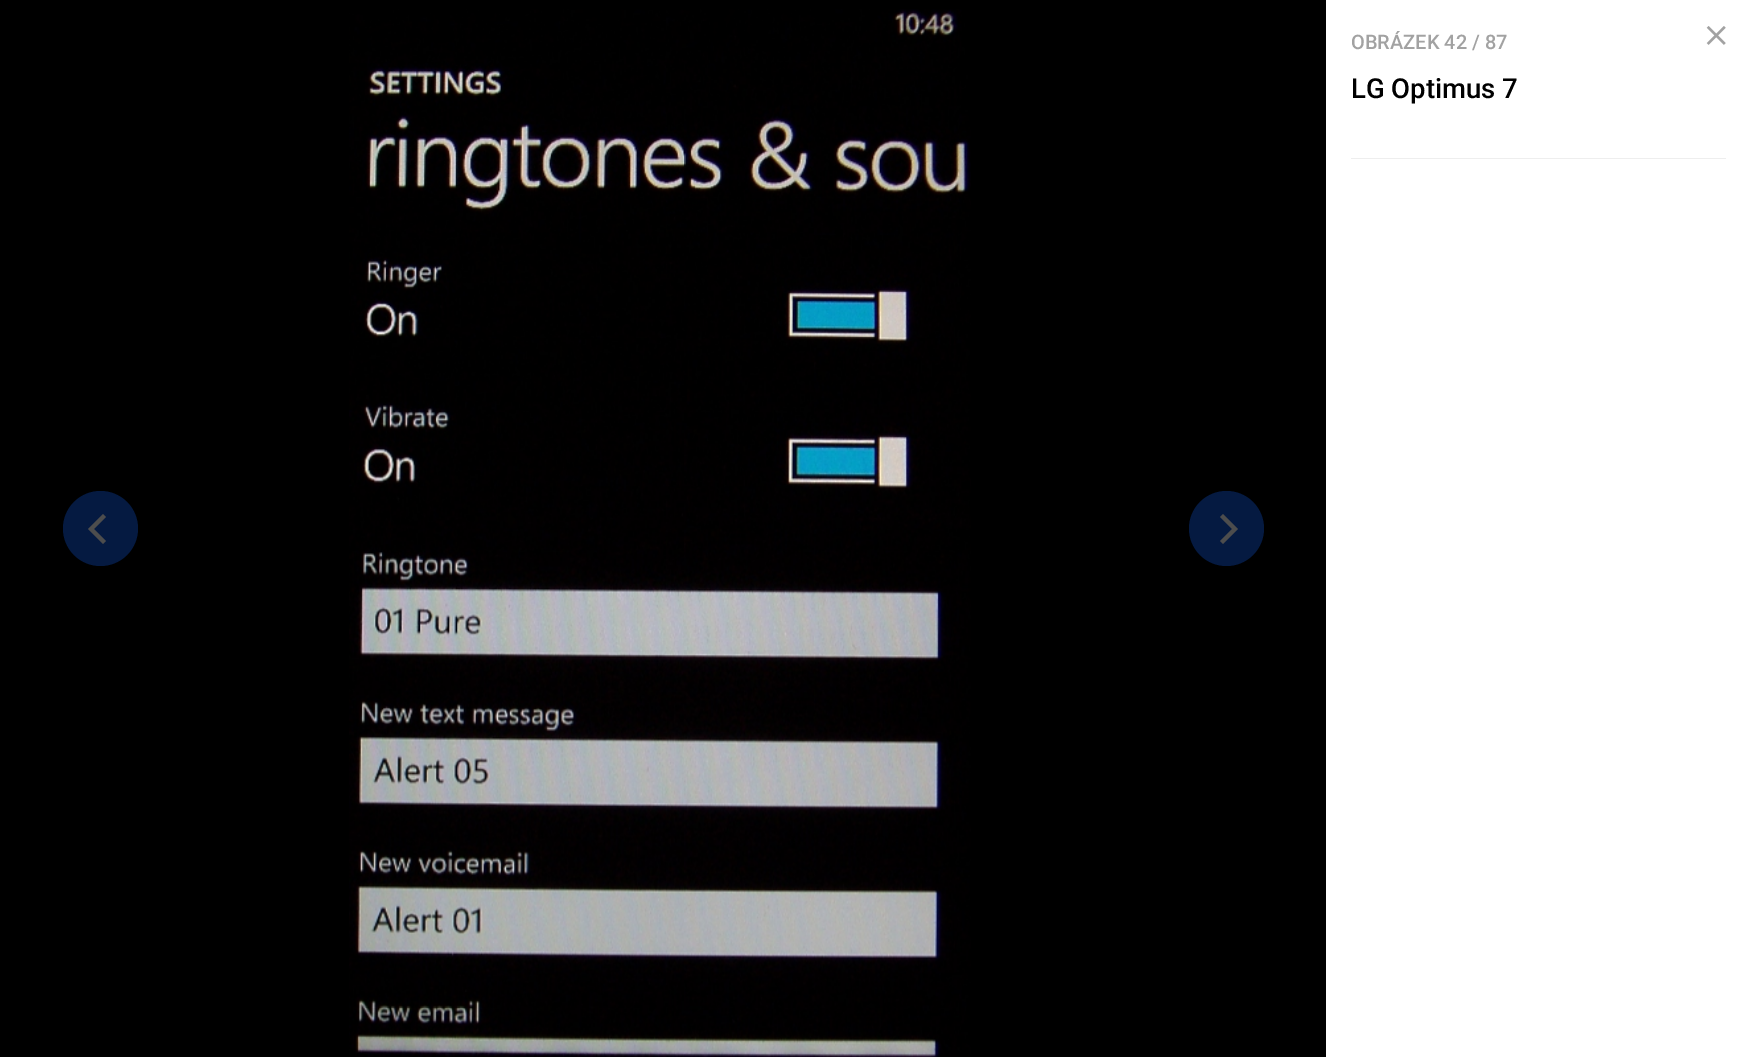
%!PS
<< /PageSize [1751 1057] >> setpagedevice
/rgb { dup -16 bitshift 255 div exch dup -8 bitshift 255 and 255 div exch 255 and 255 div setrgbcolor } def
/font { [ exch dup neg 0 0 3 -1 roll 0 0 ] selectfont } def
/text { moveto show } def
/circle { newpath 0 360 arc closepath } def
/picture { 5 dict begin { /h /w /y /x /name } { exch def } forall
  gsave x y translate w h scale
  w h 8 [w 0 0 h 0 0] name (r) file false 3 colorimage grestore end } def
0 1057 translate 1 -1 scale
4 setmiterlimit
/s1 { /Roboto-Medium 20 font 16#A2A2A2 rgb } def
/s2 { /Roboto-Medium 27.5 font 16#000000 rgb } def
16#000000 rgb
0 0 1751 1057 rectfill
16#051A41 rgb
100.5 528.5 37.5 circle fill
16#4D4D4D rgb
88 529 moveto 103 544 lineto 106 541 lineto 94 529 lineto 106 517 lineto 103 514 lineto closepath fill
(pic1.raw) 349 9 622 1048 picture
16#051A41 rgb
1226.5 528.5 37.5 circle fill
16#4D4D4D rgb
1238 529 moveto 1223 514 lineto 1220 517 lineto 1232 529 lineto 1220 541 lineto 1223 544 lineto closepath fill
16#FFFFFF rgb
1326 0 425 1057 rectfill
s1
(OBRÁZEK 42 / 87) 1351 49 text
s2
(LG Optimus 7) 1351 98 text
16#EEEEEE rgb
1351 158 375 1 rectfill
(pic2.raw) 1706 26 20 19 picture
showpage
